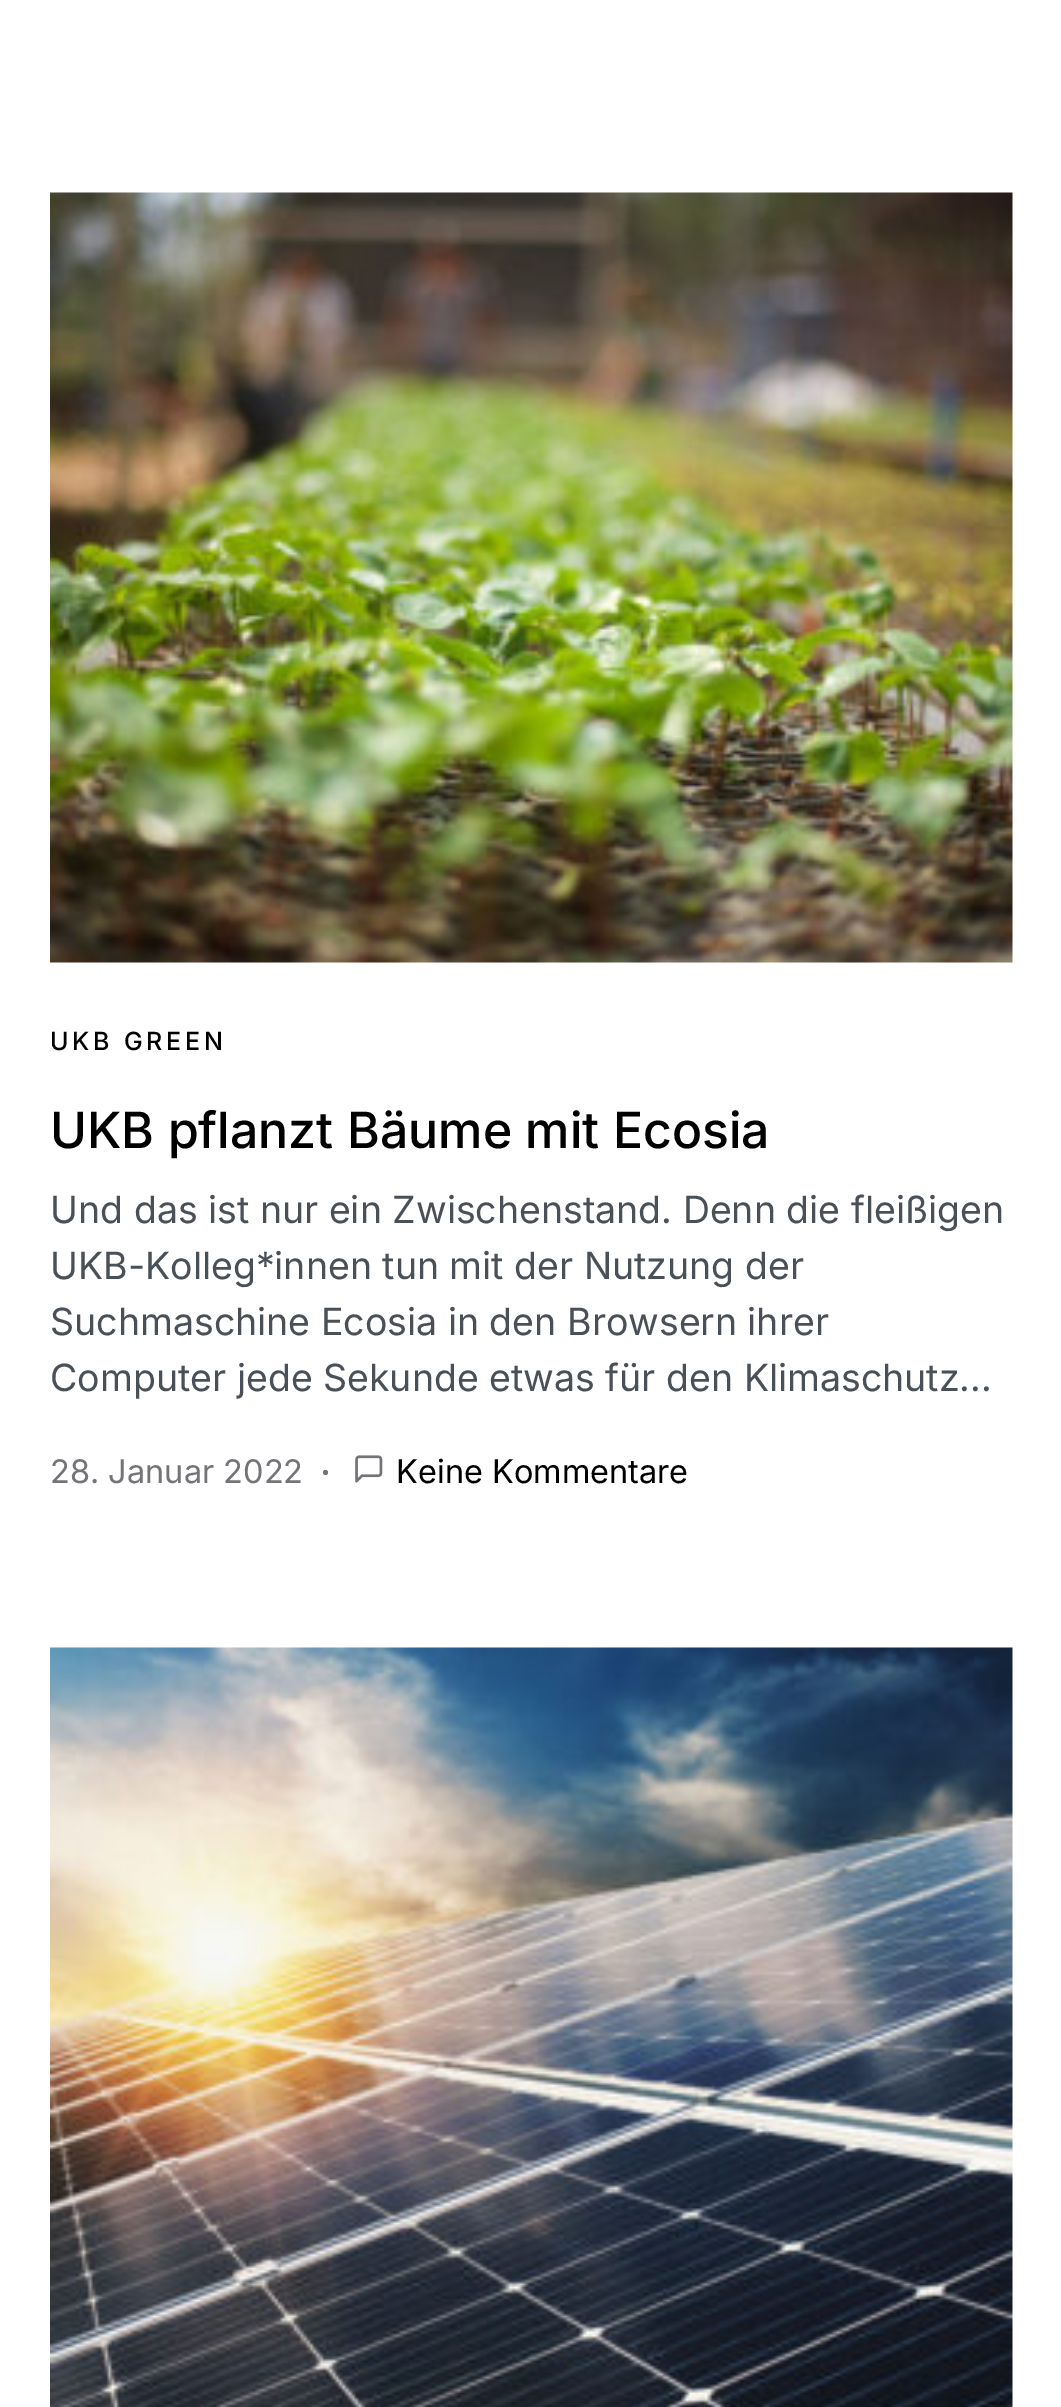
%!PS
<< /PageSize [1061 2407] >> setpagedevice
/rgb { dup -16 bitshift 255 div exch dup -8 bitshift 255 and 255 div exch 255 and 255 div setrgbcolor } def
/font { [ exch dup neg 0 0 3 -1 roll 0 0 ] selectfont } def
/text { moveto show } def
/circle { newpath 0 360 arc closepath } def
/picture { 5 dict begin { /h /w /y /x /name } { exch def } forall
  gsave x y translate w h scale
  w h 8 [w 0 0 h 0 0] name (r) file false 3 colorimage grestore end } def
0 2407 translate 1 -1 scale
4 setmiterlimit
/s1 { /Inter-Medium 50 font 16#000000 rgb } def
/s2 { /Inter-Regular 37.5 font 16#495057 rgb } def
/s3 { /Inter-Regular 32.5 font 16#737378 rgb } def
/s4 { /Inter-Regular 32.5 font 16#000000 rgb } def
16#FFFFFF rgb
0 0 1061 2407 rectfill
(pic1.raw) 50 192 963 771 picture
/Inter-Medium 25 font
16#000000 rgb
50 1050 moveto 3.75 0 (UKB GREEN) ashow
s1
(UKB pflanzt Bäume mit Ecosia) 50 1148 text
s2
(Und das ist nur ein Zwischenstand. Denn die fleißigen) 50 1223 text
(UKB-Kolleg*innen tun mit der Nutzung der) 50 1279 text
(Suchmaschine Ecosia in den Browsern ihrer) 50 1335 text
(Computer jede Sekunde etwas für den Klimaschutz...) 50 1391 text
s3
(28. Januar 2022) 50 1483 text
325.5 1472.5 2.5 circle fill
(pic2.raw) 355 1455 28 28 picture
s4
(Keine Kommentare) 396 1483 text
(pic3.raw) 50 1647 963 760 picture
showpage
